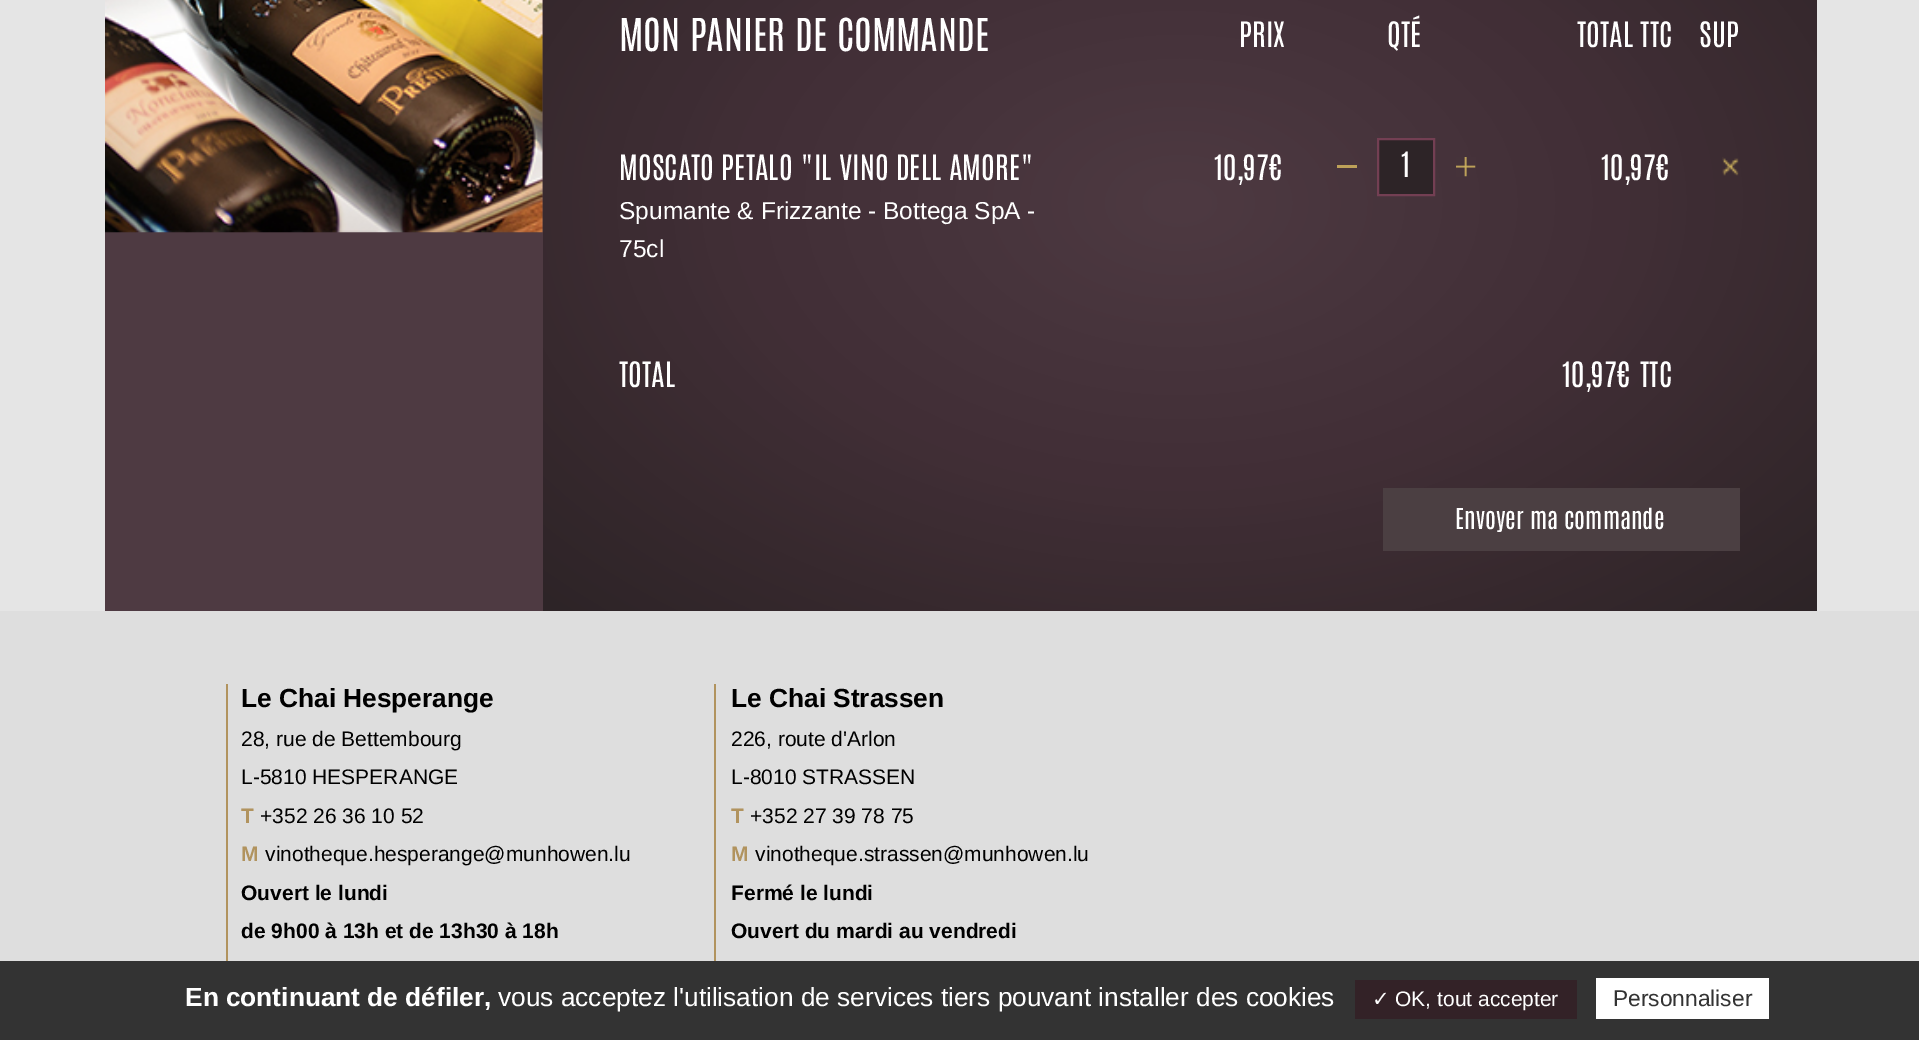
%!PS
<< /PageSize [1919 1040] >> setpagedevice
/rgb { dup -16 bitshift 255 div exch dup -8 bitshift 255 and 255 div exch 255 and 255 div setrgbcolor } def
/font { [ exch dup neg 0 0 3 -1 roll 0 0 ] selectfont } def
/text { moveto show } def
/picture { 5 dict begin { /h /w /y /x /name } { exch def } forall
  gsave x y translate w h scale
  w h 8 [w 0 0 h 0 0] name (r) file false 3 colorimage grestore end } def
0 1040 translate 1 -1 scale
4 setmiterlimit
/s1 { /Antonio-Regular 38.5 font 16#FFFFFF rgb } def
/s2 { /Antonio-Regular 29.75 font 16#FFFFFF rgb } def
/s3 { /LiberationSans-Regular 24.5 font 16#FFFFFF rgb } def
/s4 { /Antonio-Regular 24.5 font 16#FFFFFF rgb } def
/s5 { /LiberationSans-Bold 26.25 font 16#000000 rgb } def
/s6 { /LiberationSans-Regular 21 font 16#000000 rgb } def
/s7 { /LiberationSans-Bold 21 font 16#B1935E rgb } def
/s8 { /LiberationSans-Bold 21 font 16#000000 rgb } def
/s9 { /LiberationSans-Bold 26.25 font 16#FFFFFF rgb } def
/s10 { /LiberationSans-Regular 26.25 font 16#FFFFFF rgb } def
/s11 { /DejaVuSans-Regular 21 font 16#FFFFFF rgb } def
/s12 { /LiberationSans-Regular 21 font 16#FFFFFF rgb } def
/s13 { /LiberationSans-Regular 22.75 font 16#333333 rgb } def
16#DEDEDE rgb
0 0 1919 1040 rectfill
16#E5E5E5 rgb
0 0 1919 611 rectfill
16#4E3A42 rgb
105 0 438 611 rectfill
(pic1.raw) 105 0 438 233 picture
gsave 543 0 moveto 1817 0 lineto 1817 611 lineto 543 611 lineto closepath clip newpath 1180 203 translate 901 577 scale
<< /ShadingType 3 /ColorSpace /DeviceRGB /Coords [0 0 0 0 0 1] /Extend [true true] /Function << /FunctionType 3 /Domain [0 1] /Functions [<< /FunctionType 2 /Domain [0 1] /C0 [0.306 0.227 0.259] /C1 [0.251 0.18 0.208] /N 1 >> << /FunctionType 2 /Domain [0 1] /C0 [0.251 0.18 0.208] /C1 [0.176 0.141 0.153] /N 1 >>] /Bounds [0.52] /Encode [0 1 0 1] >> >> shfill grestore
s1
(MON PANIER DE COMMANDE) 619 51 text
s2
(PRIX) 1239 47 text
(QTÉ) 1387 47 text
(TOTAL TTC) 1577 47 text
(SUP) 1699 47 text
(MOSCATO PETALO "IL VINO DELL AMORE") 619 180 text
s3
(Spumante & Frizzante - Bottega SpA -) 619 219 text
(75cl) 619 257 text
s2
(10,97€) 1214 180 text
16#2D2427 rgb
1378 139 moveto 1434 139 lineto 1434 195 lineto 1378 195 lineto closepath gsave fill grestore
16#733F53 rgb
2 setlinewidth
stroke
16#BDA159 rgb
1337 165 20 3 rectfill
s2
(1) 1401 177 text
(pic2.raw) 1456 157 20 20 picture
(10,97€) 1601 180 text
(pic3.raw) 1722 157 17 19 picture
(TOTAL) 619 387 text
(10,97€ TTC) 1562 387 text
16#4B3F42 rgb
1383 488 357 63 rectfill
s4
(Envoyer ma commande) 1455 529 text
16#B1935E rgb
226 684 2 277 rectfill
s5
(Le Chai Hesperange) 241 707 text
s6
(28, rue de Bettembourg) 241 746 text
(L-5810 HESPERANGE) 241 784 text
s7
(T) 241 823 text
s6
(+352 26 36 10 52) 260 823 text
s7
(M) 241 861 text
s6
(vinotheque.hesperange@munhowen.lu) 265 861 text
s8
(Ouvert le lundi) 241 900 text
(de 9h00 à 13h et de 13h30 à 18h) 241 938 text
16#B1935E rgb
714 684 2 277 rectfill
s5
(Le Chai Strassen) 731 707 text
s6
(226, route d'Arlon) 731 746 text
(L-8010 STRASSEN) 731 784 text
s7
(T) 731 823 text
s6
(+352 27 39 78 75) 750 823 text
s7
(M) 731 861 text
s6
(vinotheque.strassen@munhowen.lu) 755 861 text
s8
(Fermé le lundi) 731 900 text
(Ouvert du mardi au vendredi) 731 938 text
16#333333 rgb
0 961 1919 79 rectfill
s9
(En continuant de défiler,) 185 1006 text
s10
(vous acceptez l'utilisation de services tiers pouvant installer des cookies) 498 1006 text
16#332227 rgb
1355 980 222 39 rectfill
s11
(✓) 1372 1006 text
s12
(OK, tout accepter) 1395 1006 text
1596 978 173 41 rectfill
s13
(Personnaliser) 1613 1006 text
showpage
